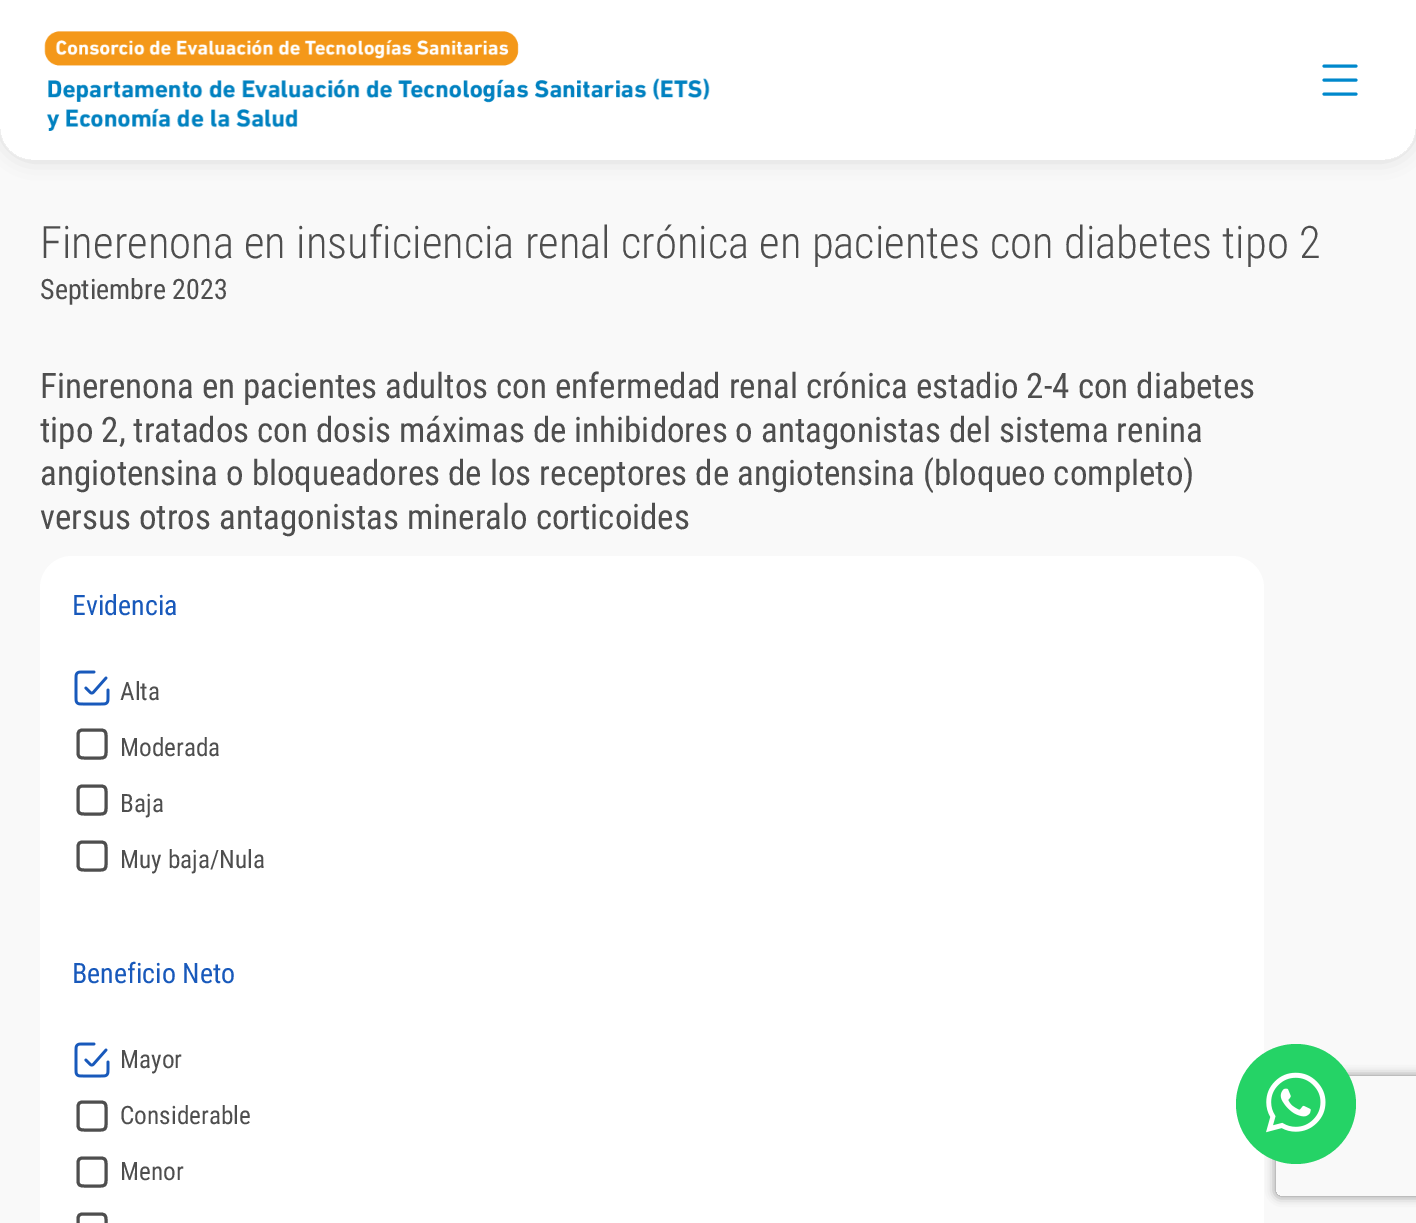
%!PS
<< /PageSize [1416 1223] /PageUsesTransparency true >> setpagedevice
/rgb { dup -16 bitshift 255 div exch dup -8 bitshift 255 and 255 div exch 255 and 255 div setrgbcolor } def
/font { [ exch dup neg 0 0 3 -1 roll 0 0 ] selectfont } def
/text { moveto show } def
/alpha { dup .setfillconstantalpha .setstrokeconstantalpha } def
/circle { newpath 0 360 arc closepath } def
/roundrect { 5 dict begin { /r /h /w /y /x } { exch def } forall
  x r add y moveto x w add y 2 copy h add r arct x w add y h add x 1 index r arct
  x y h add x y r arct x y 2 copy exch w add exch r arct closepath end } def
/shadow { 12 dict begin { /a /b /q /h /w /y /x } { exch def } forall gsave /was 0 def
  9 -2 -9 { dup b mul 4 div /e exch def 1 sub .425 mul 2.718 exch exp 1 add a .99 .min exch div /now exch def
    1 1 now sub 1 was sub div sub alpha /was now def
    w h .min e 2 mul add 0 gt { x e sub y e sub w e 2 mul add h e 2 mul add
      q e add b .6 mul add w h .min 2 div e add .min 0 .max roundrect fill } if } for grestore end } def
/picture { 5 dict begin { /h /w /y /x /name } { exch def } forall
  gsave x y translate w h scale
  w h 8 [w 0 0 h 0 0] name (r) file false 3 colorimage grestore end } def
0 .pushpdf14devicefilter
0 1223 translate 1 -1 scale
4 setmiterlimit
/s1 { /RobotoCondensed-Light 44.8 font 16#4E4E4E rgb } def
/s2 { /RobotoCondensed-Regular 28 font 16#4E4E4E rgb } def
/s3 { /RobotoCondensed-Regular 35 font 16#4E4E4E rgb } def
/s4 { /RobotoCondensed-Regular 28 font 16#1859BB rgb } def
/s5 { /RobotoCondensed-Regular 25.25 font 16#4E4E4E rgb } def
16#F9F9F9 rgb
0 0 1416 1223 rectfill
16#FFFFFF rgb
0 0 moveto 1416 0 lineto 1416 128 lineto 1416 145.5 1401.5 160 1384 160 curveto 32 160 lineto 14.5 160 0 145.5 0 128 curveto closepath fill
(pic1.raw) 44 31 666 100 picture
16#0088CC rgb
3 setlinewidth
1 setlinecap
1 setlinejoin
1324 66 moveto 1356 66 lineto 1324 80 moveto 1356 80 lineto 1324 94 moveto 1356 94 lineto stroke
gsave
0 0 moveto 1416 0 lineto 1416 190 lineto 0 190 lineto closepath 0 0 moveto 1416 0 lineto 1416 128 lineto 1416 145.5 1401.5 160 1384 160 curveto 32 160 lineto 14.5 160 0 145.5 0 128 curveto closepath eoclip newpath
16#000000 rgb
4 4 1408 152 28 11 0.19 shadow
grestore
s1
(Finerenona en insuficiencia renal crónica en pacientes con diabetes tipo 2) 40 258 text
s2
(Septiembre 2023) 40 299 text
s3
(Finerenona en pacientes adultos con enfermedad renal crónica estadio 2-4 con diabetes) 40 398 text
(tipo 2, tratados con dosis máximas de inhibidores o antagonistas del sistema renina) 40 442 text
(angiotensina o bloqueadores de los receptores de angiotensina \(bloqueo completo\)) 40 485 text
(versus otros antagonistas mineralo corticoides) 40 529 text
16#FFFFFF rgb
40 556 1224 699 32 roundrect fill
s4
(Evidencia) 72 615 text
(pic2.raw) 74 670 36 36 picture
s5
(Alta) 120 700 text
99 730 moveto 104.5 730 106 730.5 106 736 curveto 106 752 lineto 106 757 105 758 100 758 curveto 85 758 lineto 79.5 758 78 757.5 78 752 curveto 78 736 lineto 78 731 79 730 84 730 curveto closepath stroke
(Moderada) 120 756 text
99 786 moveto 104.5 786 106 786.5 106 792 curveto 106 808 lineto 106 813 105 814 100 814 curveto 85 814 lineto 79.5 814 78 813.5 78 808 curveto 78 792 lineto 78 787 79 786 84 786 curveto closepath stroke
(Baja) 120 812 text
99 842 moveto 104.5 842 106 842.5 106 848 curveto 106 864 lineto 106 869 105 870 100 870 curveto 85 870 lineto 79.5 870 78 869.5 78 864 curveto 78 848 lineto 78 843 79 842 84 842 curveto closepath stroke
(Muy baja/Nula) 120 868 text
s4
(Beneficio Neto) 72 983 text
(pic2.raw) 74 1042 36 36 picture
s5
(Mayor) 120 1068 text
99 1102 moveto 104.5 1102 106 1102.5 106 1108 curveto 106 1124 lineto 106 1129 105 1130 100 1130 curveto 85 1130 lineto 79.5 1130 78 1129.5 78 1124 curveto 78 1108 lineto 78 1103 79 1102 84 1102 curveto closepath stroke
(Considerable) 120 1124 text
99 1158 moveto 104.5 1158 106 1158.5 106 1164 curveto 106 1180 lineto 106 1185 105 1186 100 1186 curveto 85 1186 lineto 79.5 1186 78 1185.5 78 1180 curveto 78 1164 lineto 78 1159 79 1158 84 1158 curveto closepath stroke
(Menor) 120 1180 text
99 1214 moveto 104.5 1214 106 1214.5 106 1220 curveto 106 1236 lineto 106 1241 105 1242 100 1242 curveto 85 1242 lineto 79.5 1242 78 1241.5 78 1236 curveto 78 1220 lineto 78 1215 79 1214 84 1214 curveto closepath stroke
gsave
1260 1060 moveto 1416 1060 lineto 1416 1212 lineto 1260 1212 lineto closepath 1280 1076 moveto 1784 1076 lineto 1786 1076 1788 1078 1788 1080 curveto 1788 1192 lineto 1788 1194 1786 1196 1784 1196 curveto 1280 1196 lineto 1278 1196 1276 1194 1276 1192 curveto 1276 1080 lineto 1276 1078 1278 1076 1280 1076 curveto closepath eoclip newpath
16#808080 rgb
1276 1076 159 120 4 5 1 shadow
grestore
16#25D366 rgb
1296 1104 60 circle fill
(pic3.raw) 1266 1072 60 61 picture
.poppdf14devicefilter showpage
